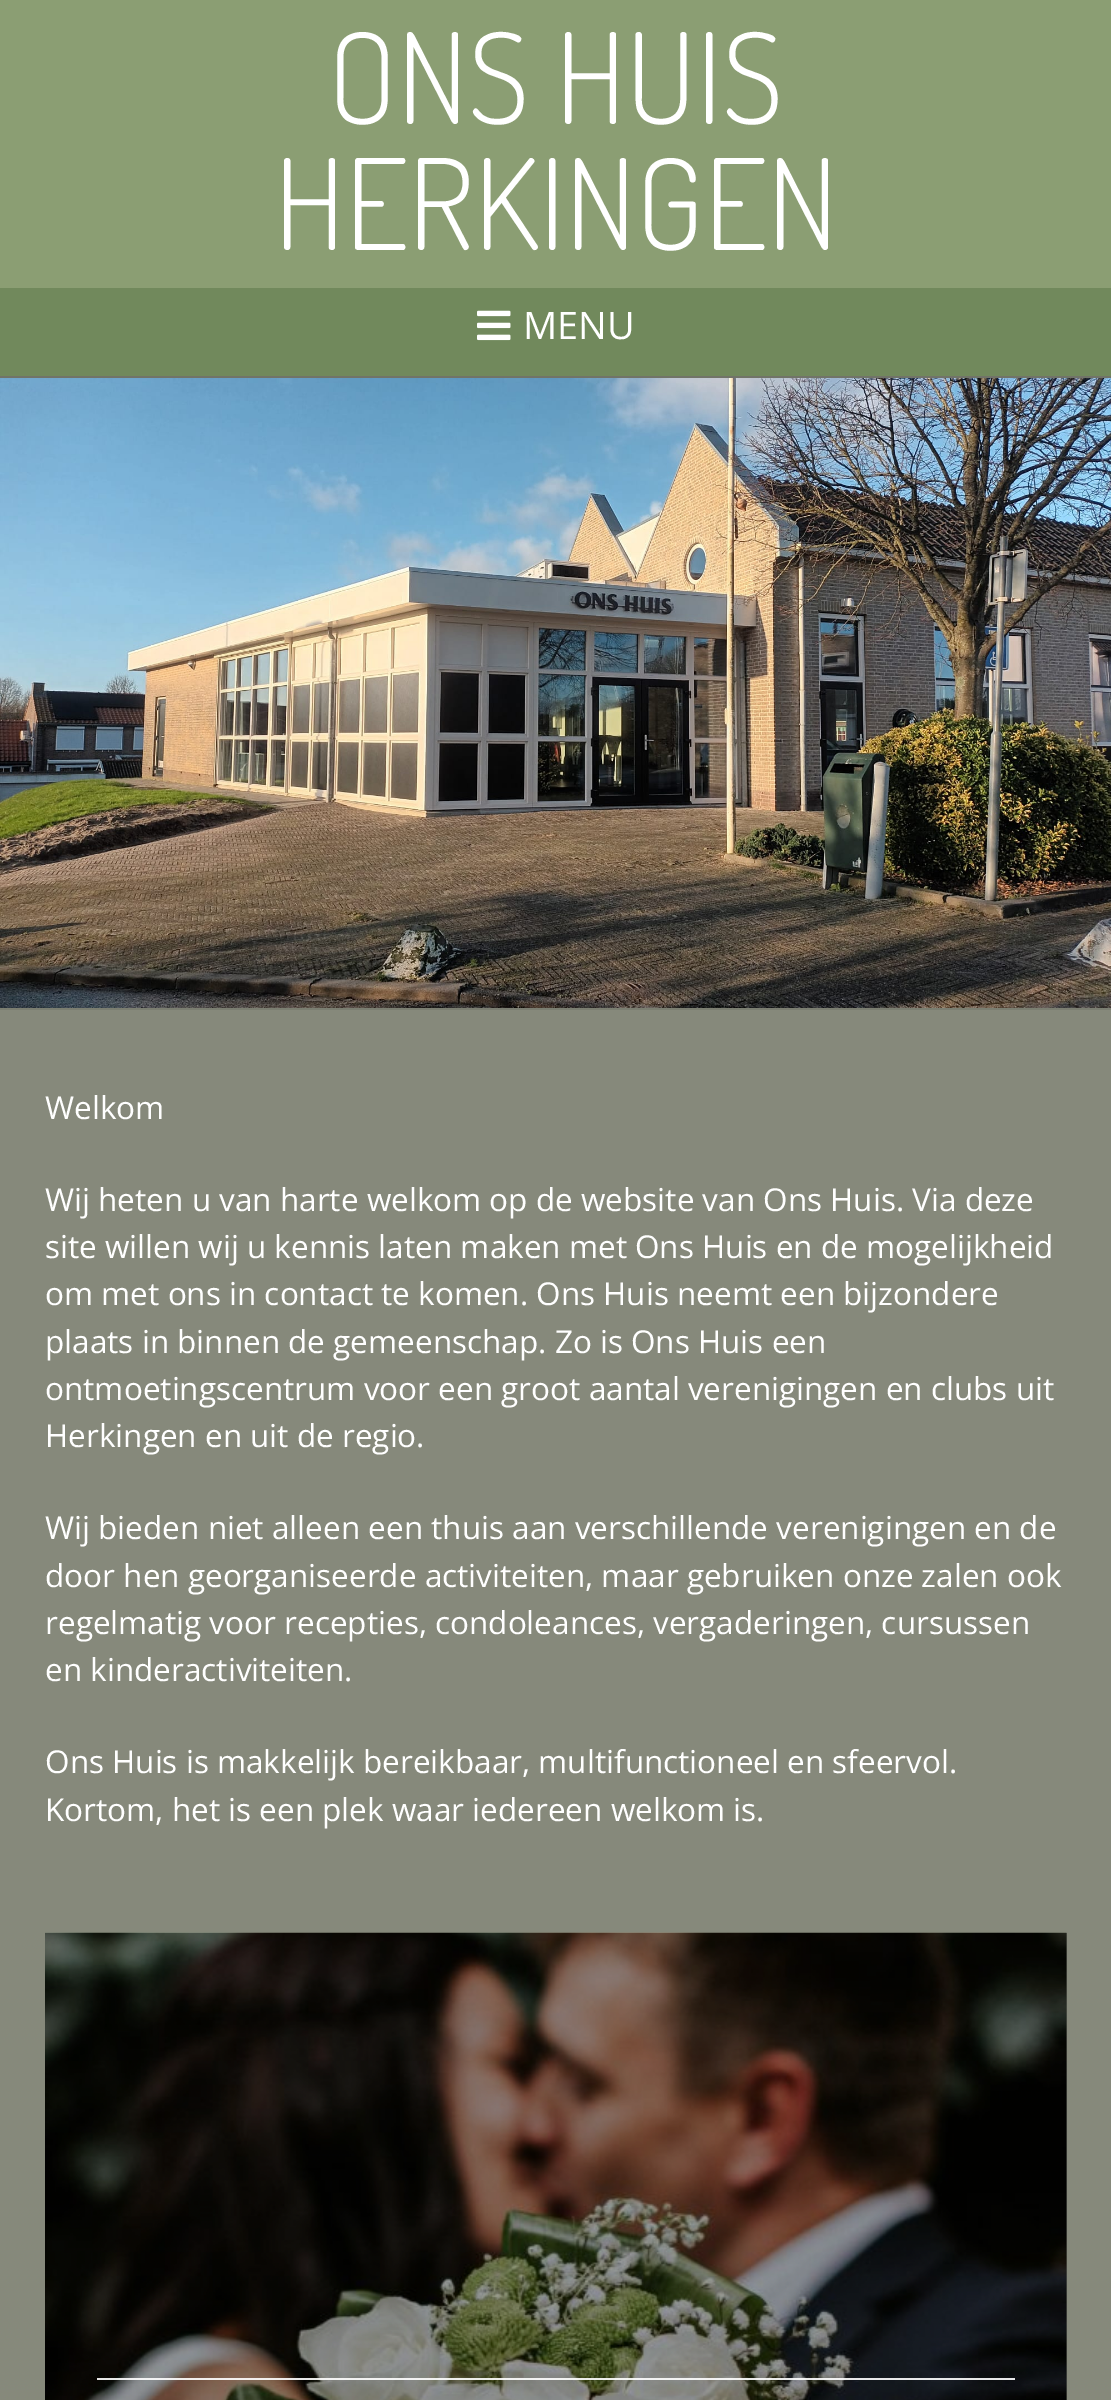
%!PS
<< /PageSize [1111 2400] /PageUsesTransparency true >> setpagedevice
/rgb { dup -16 bitshift 255 div exch dup -8 bitshift 255 and 255 div exch 255 and 255 div setrgbcolor } def
/font { [ exch dup neg 0 0 3 -1 roll 0 0 ] selectfont } def
/text { moveto show } def
/alpha { dup .setfillconstantalpha .setstrokeconstantalpha } def
/picture { 5 dict begin { /h /w /y /x /name } { exch def } forall
  gsave x y translate w h scale
  w h 8 [w 0 0 h 0 0] name (r) file false 3 colorimage grestore end } def
0 .pushpdf14devicefilter
0 2400 translate 1 -1 scale
4 setmiterlimit
/s1 { /Dosis-Light 126 font 16#FFFFFF rgb } def
/s2 { /OpenSans-Regular 38 font 16#FFFFFF rgb } def
/s3 { /OpenSans-Regular 31.5 font 16#FFFFFF rgb } def
16#86897B rgb
0 0 1111 2400 rectfill
16#5E6056 rgb
1066 1933 1 467 rectfill
16#8B9E73 rgb
0 0 1111 288 rectfill
s1
(ONS HUIS) 328 124 text
(HERKINGEN) 274 250 text
16#71895C rgb
0 288 1111 88 rectfill
(pic1.raw) 477 310 34 31 picture
s2
(MENU) 523 339 text
16#717468 rgb
0 376 1111 2 rectfill
16#7B7E71 rgb
0 1008 1111 2 rectfill
(pic2.raw) 0 378 1111 630 picture
s3
(Welkom) 45 1119 text
(Wij heten u van harte welkom op de website van Ons Huis. Via deze) 45 1211 text
(site willen wij u kennis laten maken met Ons Huis en de mogelijkheid) 45 1258 text
(om met ons in contact te komen. Ons Huis neemt een bijzondere) 45 1305 text
(plaats in binnen de gemeenschap. Zo is Ons Huis een) 45 1353 text
(ontmoetingscentrum voor een groot aantal verenigingen en clubs uit) 45 1400 text
(Herkingen en uit de regio.) 45 1447 text
(Wij bieden niet alleen een thuis aan verschillende verenigingen en de) 45 1539 text
(door hen georganiseerde activiteiten, maar gebruiken onze zalen ook) 45 1587 text
(regelmatig voor recepties, condoleances, vergaderingen, cursussen) 45 1634 text
(en kinderactiviteiten.) 45 1681 text
(Ons Huis is makkelijk bereikbaar, multifunctioneel en sfeervol.) 45 1773 text
(Kortom, het is een plek waar iedereen welkom is.) 45 1821 text
(pic3.raw) 45 1932 1022 468 picture
0.9 alpha
97 2378 918 2 rectfill
.poppdf14devicefilter showpage
